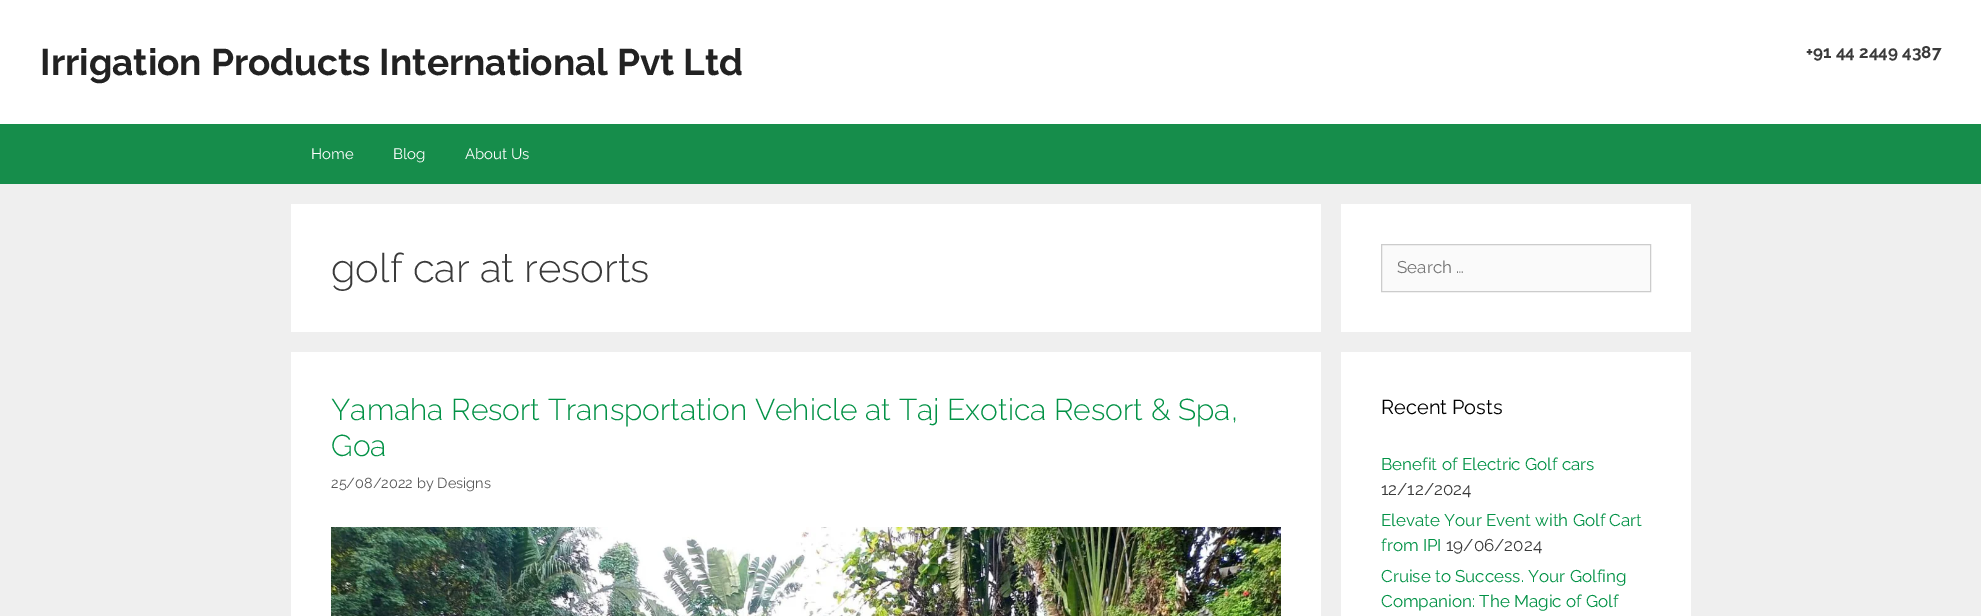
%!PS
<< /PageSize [1981 616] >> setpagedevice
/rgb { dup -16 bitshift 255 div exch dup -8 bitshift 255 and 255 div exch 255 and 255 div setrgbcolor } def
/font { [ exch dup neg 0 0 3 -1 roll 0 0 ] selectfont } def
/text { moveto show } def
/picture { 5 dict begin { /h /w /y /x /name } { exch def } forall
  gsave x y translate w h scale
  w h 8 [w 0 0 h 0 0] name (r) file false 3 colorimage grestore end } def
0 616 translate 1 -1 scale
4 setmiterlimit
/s1 { /Raleway-Bold 37 font 16#222222 rgb } def
/s2 { /Raleway-Bold 17 font 16#3A3A3A rgb } def
/s3 { /Raleway-Regular 15 font 16#FFFFFF rgb } def
/s4 { /Raleway-Light 40 font 16#3A3A3A rgb } def
/s5 { /Raleway-Light 30 font 16#029246 rgb } def
/s6 { /Raleway-Regular 14.5 font 16#595959 rgb } def
/s7 { /Raleway-Regular 17 font 16#757575 rgb } def
/s8 { /Raleway-Regular 20 font 16#000000 rgb } def
/s9 { /Raleway-Regular 17 font 16#029246 rgb } def
/s10 { /Raleway-Regular 17 font 16#3A3A3A rgb } def
16#EFEFEF rgb
0 0 1981 616 rectfill
16#FFFFFF rgb
0 0 1981 124 rectfill
s1
(Irrigation Products International Pvt Ltd) 40 75 text
s2
(+91 44 2449 4387) 1806 58 text
16#168D4B rgb
0 124 1981 60 rectfill
s3
(Home) 311 159 text
(Blog) 393 159 text
(About Us) 465 159 text
291 204 1030 128 rectfill
s4
(golf car at resorts) 331 282 text
16#FFFFFF rgb
291 352 1030 264 rectfill
s5
(Yamaha Resort Transportation Vehicle at Taj Exotica Resort & Spa,) 331 420 text
(Goa) 331 456 text
s6
(25/08/2022 by Designs) 331 488 text
(pic1.raw) 331 527 950 89 picture
16#FFFFFF rgb
1341 204 350 128 rectfill
16#FAFAFA rgb
1381.5 244.5 moveto 1650.5 244.5 lineto 1650.5 291.5 lineto 1381.5 291.5 lineto closepath gsave fill grestore
16#CCCCCC rgb
stroke
s7
(Search …) 1397 273 text
16#FFFFFF rgb
1341 352 350 264 rectfill
s8
(Recent Posts) 1381 414 text
s9
(Benefit of Electric Golf cars) 1381 470 text
s10
(12/12/2024) 1381 495 text
s9
(Elevate Your Event with Golf Cart) 1381 526 text
(from IPI) 1381 551 text
s10
(19/06/2024) 1446 551 text
s9
(Cruise to Success. Your Golfing) 1381 582 text
(Companion: The Magic of Golf) 1381 607 text
showpage
